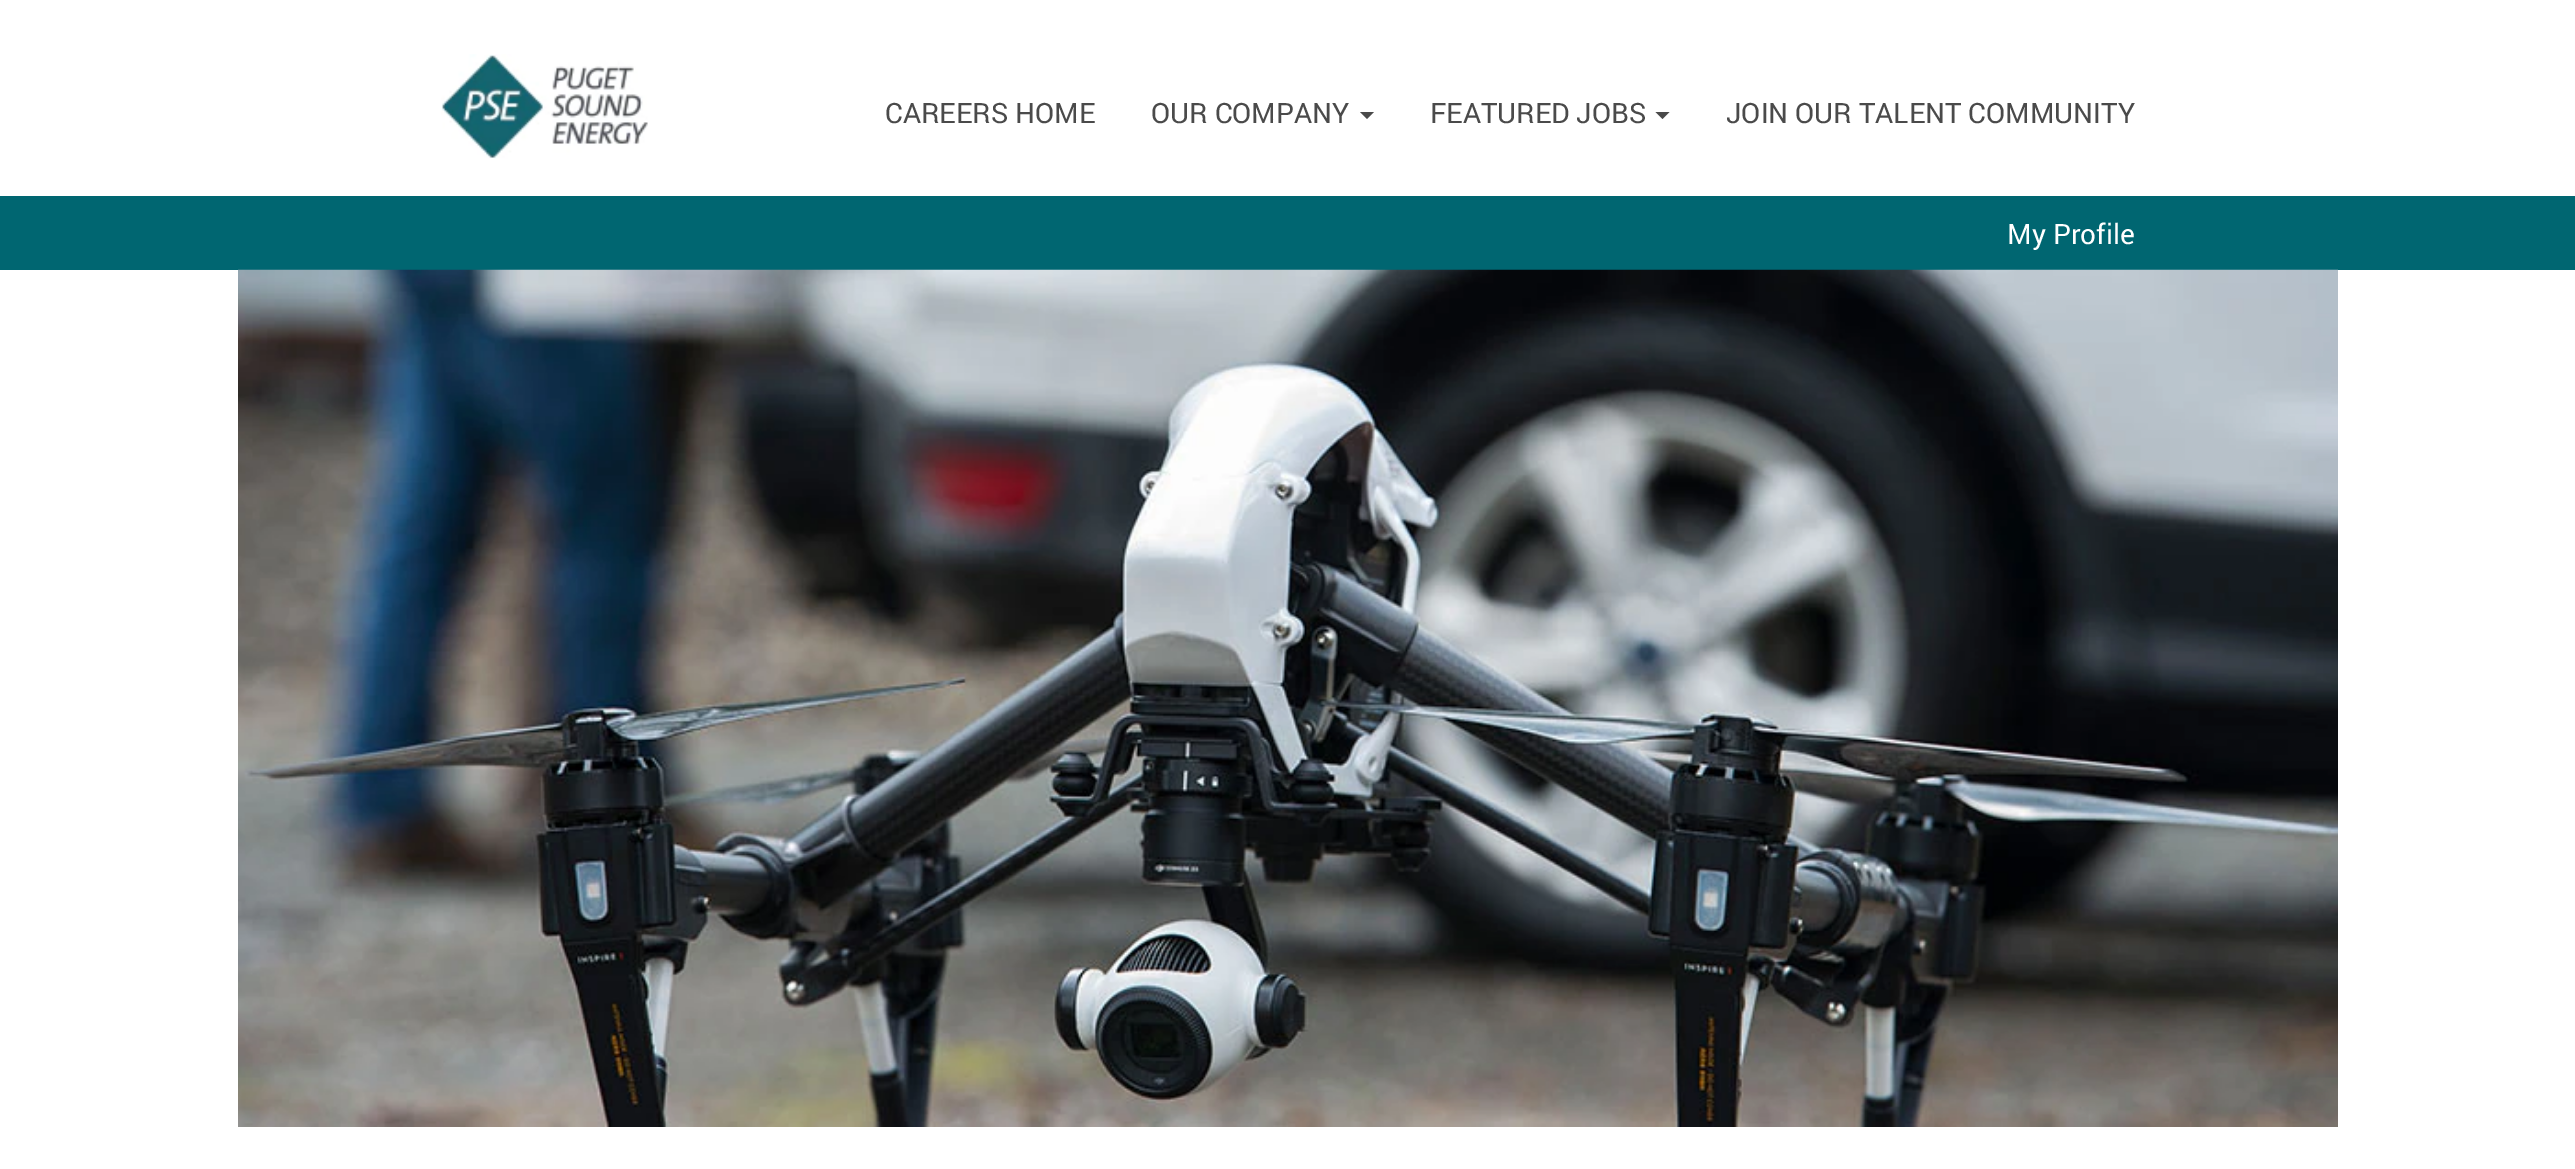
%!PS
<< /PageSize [2575 1169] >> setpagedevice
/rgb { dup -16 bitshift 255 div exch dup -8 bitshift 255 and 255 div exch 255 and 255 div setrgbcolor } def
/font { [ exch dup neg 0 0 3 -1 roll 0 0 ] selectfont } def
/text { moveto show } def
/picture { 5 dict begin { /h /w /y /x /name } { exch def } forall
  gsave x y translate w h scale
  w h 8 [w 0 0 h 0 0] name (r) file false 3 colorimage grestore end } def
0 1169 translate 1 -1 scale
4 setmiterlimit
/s1 { /Roboto-Regular 28 font 16#4A4A4A rgb } def
/s2 { /Roboto-Regular 28 font 16#FFFFFF rgb } def
16#FFFFFF rgb
0 0 2575 1169 rectfill
(pic1.raw) 441 54 207 105 picture
s1
(CAREERS HOME) 885 123 text
(OUR COMPANY) 1151 123 text
1360 112 moveto 1374 112 lineto 1367 119 lineto closepath fill
(FEATURED JOBS) 1430 123 text
1655.5 112 moveto 1669.5 112 lineto 1662.5 119 lineto closepath fill
(JOIN OUR TALENT COMMUNITY) 1726 123 text
16#006671 rgb
0 196 2575 74 rectfill
s2
(My Profile) 2007 244 text
(pic2.raw) 238 269 2100 858 picture
showpage
